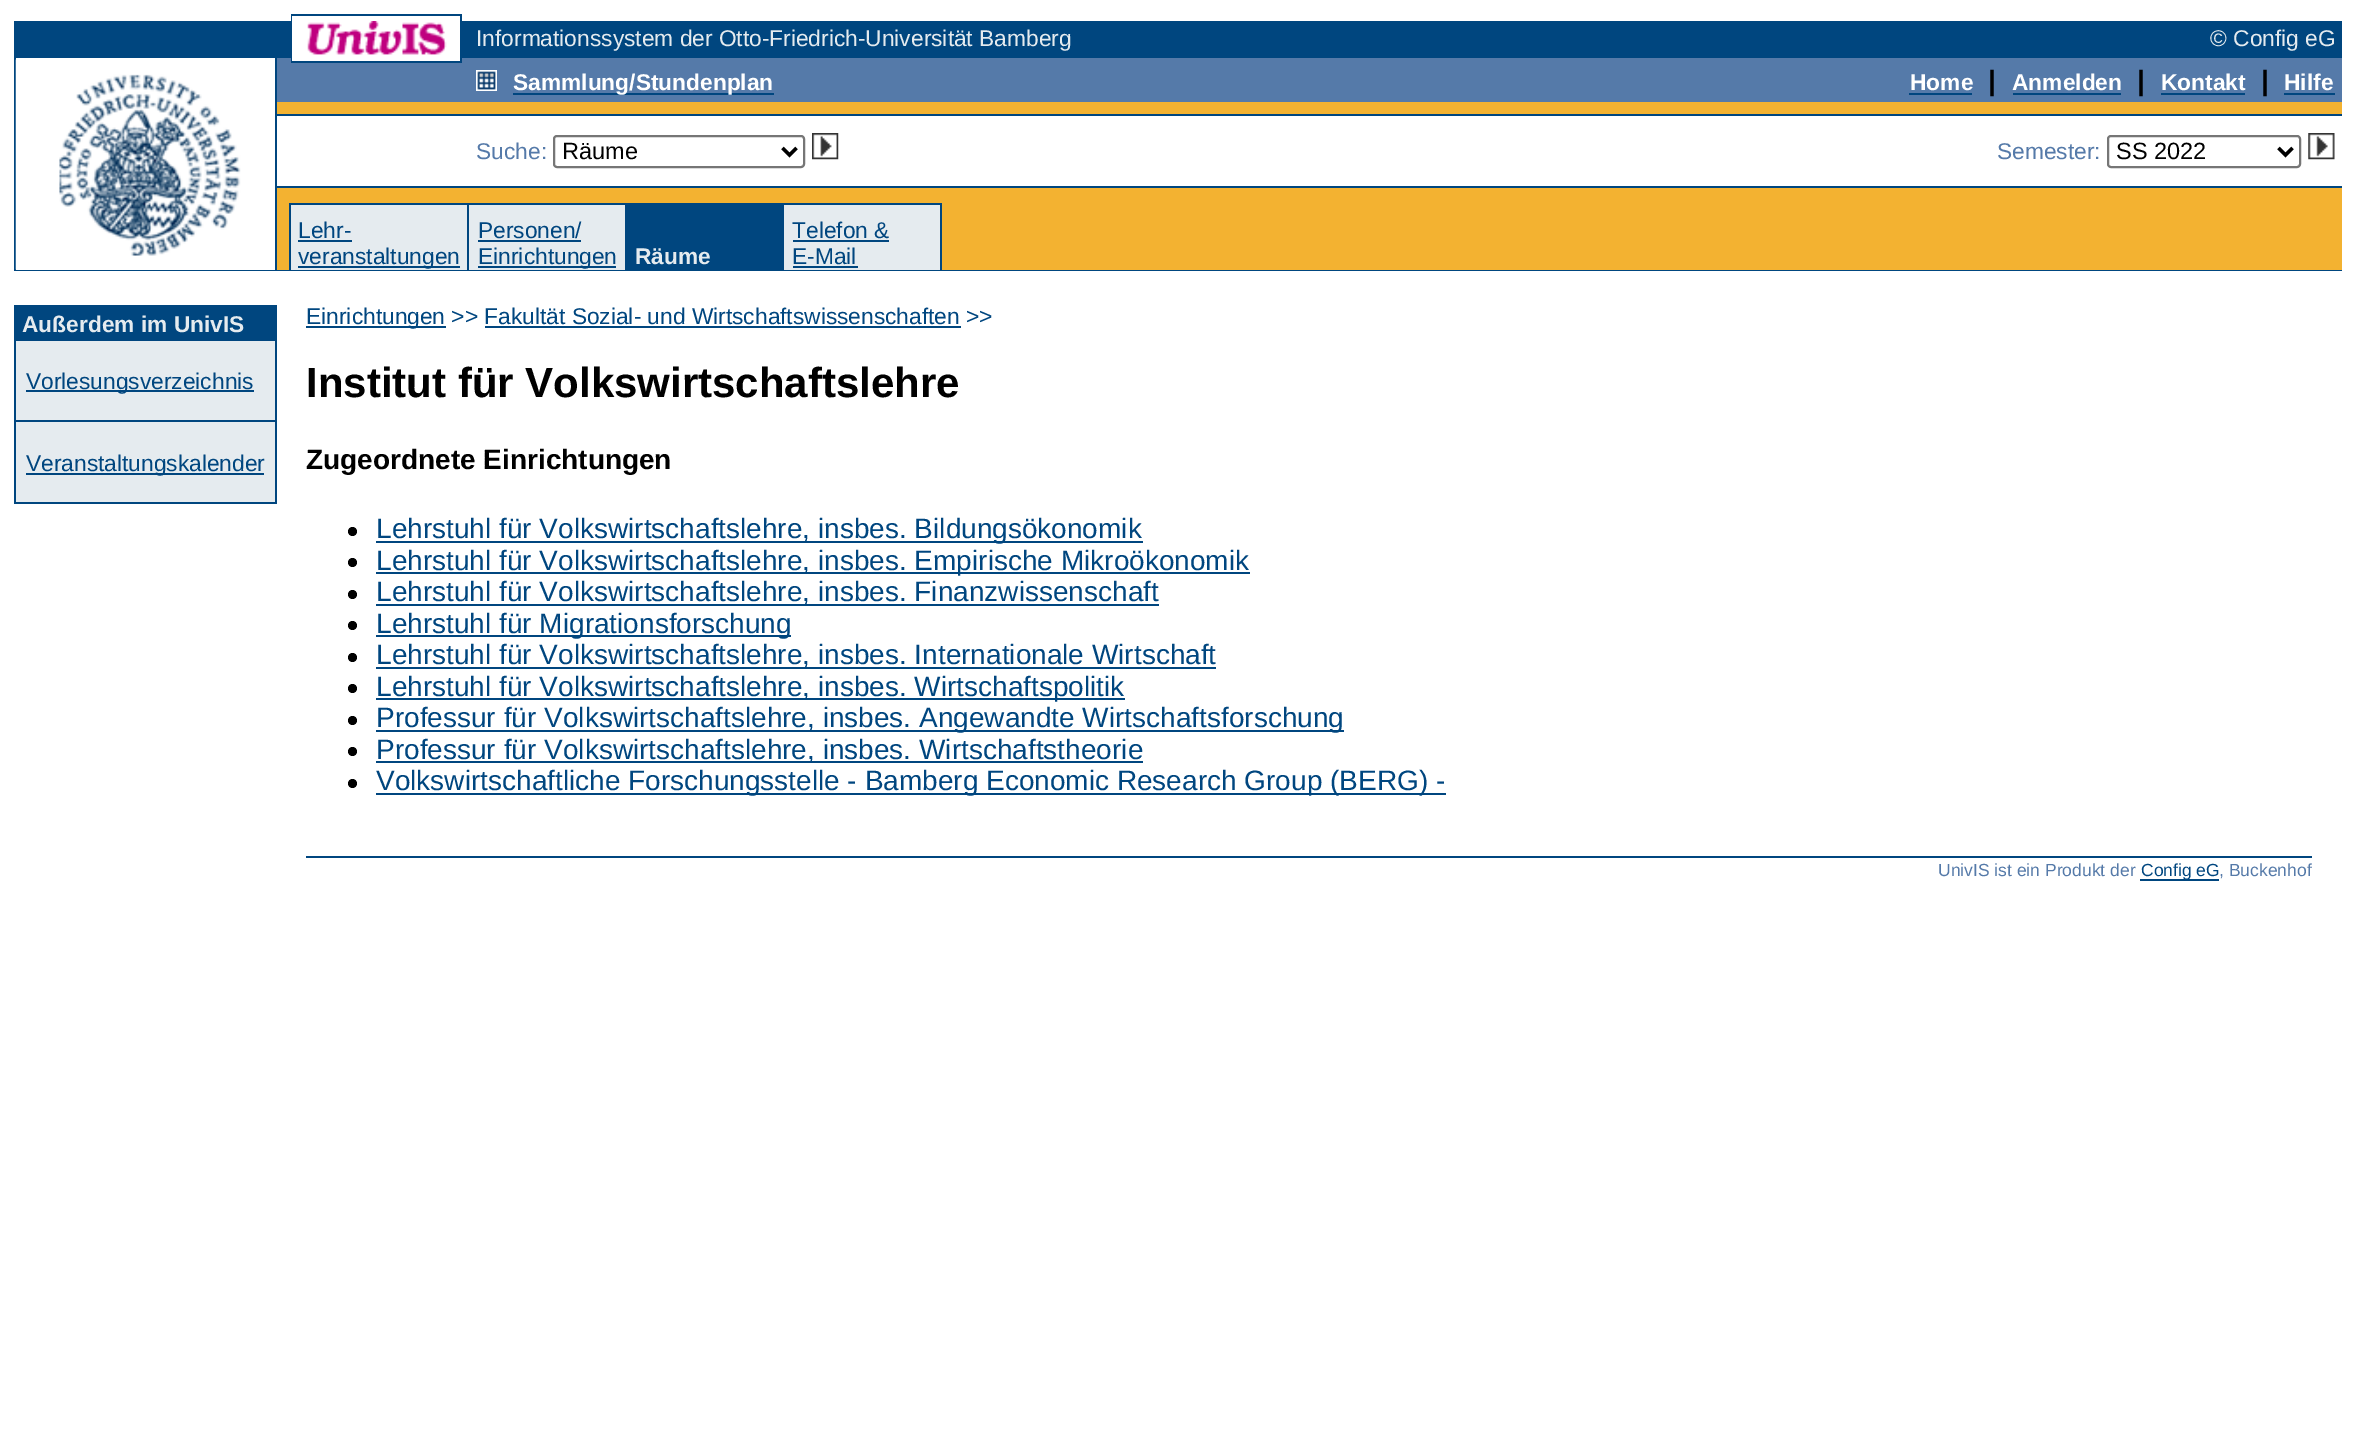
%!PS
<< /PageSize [2355 1434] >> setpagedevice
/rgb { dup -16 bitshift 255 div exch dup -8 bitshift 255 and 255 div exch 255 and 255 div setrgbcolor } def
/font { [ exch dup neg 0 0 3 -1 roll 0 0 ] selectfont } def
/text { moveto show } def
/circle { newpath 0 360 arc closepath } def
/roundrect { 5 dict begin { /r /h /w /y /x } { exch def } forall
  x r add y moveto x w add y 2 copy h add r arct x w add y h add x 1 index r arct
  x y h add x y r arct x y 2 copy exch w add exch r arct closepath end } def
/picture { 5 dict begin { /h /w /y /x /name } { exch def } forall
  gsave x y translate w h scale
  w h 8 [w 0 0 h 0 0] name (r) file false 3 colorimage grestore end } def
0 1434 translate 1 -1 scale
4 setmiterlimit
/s1 { /LiberationSans-Regular 22.75 font 16#E5EBEF rgb } def
/s2 { /LiberationSans-Bold 22.75 font 16#FFFFFF rgb } def
/s3 { /LiberationSans-Bold 28 font 16#000000 rgb } def
/s4 { /LiberationSans-Regular 22.75 font 16#557AA9 rgb } def
/s5 { /LiberationSans-Regular 23.5 font 16#000000 rgb } def
/s6 { /LiberationSans-Regular 22.75 font 16#00467F rgb } def
/s7 { /LiberationSans-Bold 22.75 font 16#E5EBEF rgb } def
/s8 { /LiberationSans-Bold 42 font 16#000000 rgb } def
/s9 { /LiberationSans-Regular 28 font 16#00467F rgb } def
/s10 { /LiberationSans-Regular 17.5 font 16#557AA9 rgb } def
/s11 { /LiberationSans-Regular 17.5 font 16#00467F rgb } def
16#FFFFFF rgb
0 0 2355 1434 rectfill
16#00467F rgb
291 14 171 2 rectfill
291 16 1 5 rectfill
460 16 2 40 rectfill
14 21 278 35 rectfill
(pic1.raw) 307 21 140 34 picture
462 21 1880 35 rectfill
s1
(Informationssystem der Otto-Friedrich-Universität Bamberg) 476 46 text
(© Config eG) 2210 46 text
16#00467F rgb
14 56 2328 2 rectfill
16#FFFFFF rgb
292 56 168 2 rectfill
16#00467F rgb
14 58 2 213 rectfill
275 58 2 212 rectfill
(pic2.raw) 15 59 226 211 picture
16#F3B231 rgb
277 102 2065 168 rectfill
16#557AA9 rgb
277 58 2065 3 rectfill
16#00467F rgb
291 58 1 4 rectfill
16#FFFFFF rgb
292 58 168 3 rectfill
16#00467F rgb
460 58 2 4 rectfill
16#557AA9 rgb
277 61 2065 4 rectfill
16#00467F rgb
291 61 171 2 rectfill
16#557AA9 rgb
277 65 2065 37 rectfill
(pic3.raw) 476 70 21 21 picture
16#00467F rgb
513 93 261 2 rectfill
s2
(Sammlung/Stundenplan) 513 90 text
(Home) 1910 90 text
16#00467F rgb
1909 93 63 2 rectfill
s3
(|) 1988 90 text
s2
(Anmelden) 2012 90 text
16#00467F rgb
2013 93 108 2 rectfill
s3
(|) 2137 90 text
s2
(Kontakt) 2161 90 text
16#00467F rgb
2161 93 84 2 rectfill
s3
(|) 2261 90 text
s2
(Hilfe) 2284 90 text
16#00467F rgb
2284 93 51 2 rectfill
277 114 2065 2 rectfill
16#FFFFFF rgb
277 116 2065 70 rectfill
s4
(Suche:) 476 159 text
16#767676 rgb
2 setlinewidth
554 136 250 31 3 roundrect stroke
16#000000 rgb
3.5 setlinewidth
782.5 148 moveto 789.5 155 lineto 796.5 148 lineto stroke
s5
(Räume) 562 159 text
(pic4.raw) 812 133 27 27 picture
s4
(Semester:) 1997 159 text
16#767676 rgb
2 setlinewidth
2108 136 192 31 3 roundrect stroke
16#000000 rgb
3.5 setlinewidth
2278.5 148 moveto 2285.5 155 lineto 2292.5 148 lineto stroke
s5
(SS 2022) 2116 159 text
(pic5.raw) 2308 133 27 27 picture
16#00467F rgb
277 186 2065 2 rectfill
289 203 653 2 rectfill
289 205 2 65 rectfill
16#E5EBEF rgb
291 205 176 65 rectfill
16#00467F rgb
467 205 2 65 rectfill
16#E5EBEF rgb
469 205 156 65 rectfill
16#00467F rgb
625 205 159 65 rectfill
16#E5EBEF rgb
784 205 156 65 rectfill
16#00467F rgb
940 205 2 65 rectfill
s6
(Lehr-) 298 238 text
298 240 54 2 rectfill
298 266 162 2 rectfill
(veranstaltungen) 298 264 text
(Personen/) 478 238 text
478 240 103 2 rectfill
478 266 138 2 rectfill
(Einrichtungen) 478 264 text
s7
(Räume) 635 264 text
s6
(Telefon &) 792 238 text
793 240 96 2 rectfill
(E-Mail) 792 264 text
793 266 65 2 rectfill
16 270 2326 1 rectfill
14 305 2 199 rectfill
16 305 259 36 rectfill
275 305 2 199 rectfill
s7
(Außerdem im UnivIS) 22 332 text
16 341 259 79 rectfill
16#00467F rgb
26 390 228 2 rectfill
s6
(Vorlesungsverzeichnis) 26 389 text
16 420 259 2 rectfill
16#E5EBEF rgb
16 422 259 2 rectfill
16 424 259 78 rectfill
16#00467F rgb
26 473 238 2 rectfill
(Veranstaltungskalender) 26 471 text
16 502 259 2 rectfill
306 326 140 2 rectfill
(Einrichtungen >> Fakultät Sozial- und Wirtschaftswissenschaften >>) 306 324 text
485 326 476 2 rectfill
s8
(Institut für Volkswirtschaftslehre) 306 397 text
s3
(Zugeordnete Einrichtungen) 306 469 text
352.5 531.5 4.5 circle fill
16#00467F rgb
376 541 767 2 rectfill
s9
(Lehrstuhl für Volkswirtschaftslehre, insbes. Bildungsökonomik) 376 538 text
16#000000 rgb
352.5 562.5 4.5 circle fill
16#00467F rgb
376 572 874 2 rectfill
(Lehrstuhl für Volkswirtschaftslehre, insbes. Empirische Mikroökonomik) 376 570 text
16#000000 rgb
352.5 594.5 4.5 circle fill
16#00467F rgb
376 604 783 2 rectfill
(Lehrstuhl für Volkswirtschaftslehre, insbes. Finanzwissenschaft) 376 601 text
16#000000 rgb
352.5 625.5 4.5 circle fill
16#00467F rgb
376 635 415 2 rectfill
(Lehrstuhl für Migrationsforschung) 376 633 text
16#000000 rgb
352.5 657.5 4.5 circle fill
16#00467F rgb
376 667 840 2 rectfill
(Lehrstuhl für Volkswirtschaftslehre, insbes. Internationale Wirtschaft) 376 664 text
16#000000 rgb
352.5 688.5 4.5 circle fill
16#00467F rgb
376 698 749 2 rectfill
(Lehrstuhl für Volkswirtschaftslehre, insbes. Wirtschaftspolitik) 376 696 text
16#000000 rgb
352.5 720.5 4.5 circle fill
16#00467F rgb
376 730 968 2 rectfill
(Professur für Volkswirtschaftslehre, insbes. Angewandte Wirtschaftsforschung) 376 727 text
16#000000 rgb
352.5 751.5 4.5 circle fill
16#00467F rgb
376 761 767 2 rectfill
(Professur für Volkswirtschaftslehre, insbes. Wirtschaftstheorie) 376 759 text
16#000000 rgb
352.5 783.5 4.5 circle fill
16#00467F rgb
376 793 1070 2 rectfill
(Volkswirtschaftliche Forschungsstelle - Bamberg Economic Research Group \(BERG\) -) 376 790 text
306 856 2006 2 rectfill
s10
(UnivIS ist ein Produkt der) 1938 876 text
16#00467F rgb
2140 879 79 2 rectfill
(Config eG) 2141 876 text
s10
(, Buckenhof) 2219 876 text
showpage
